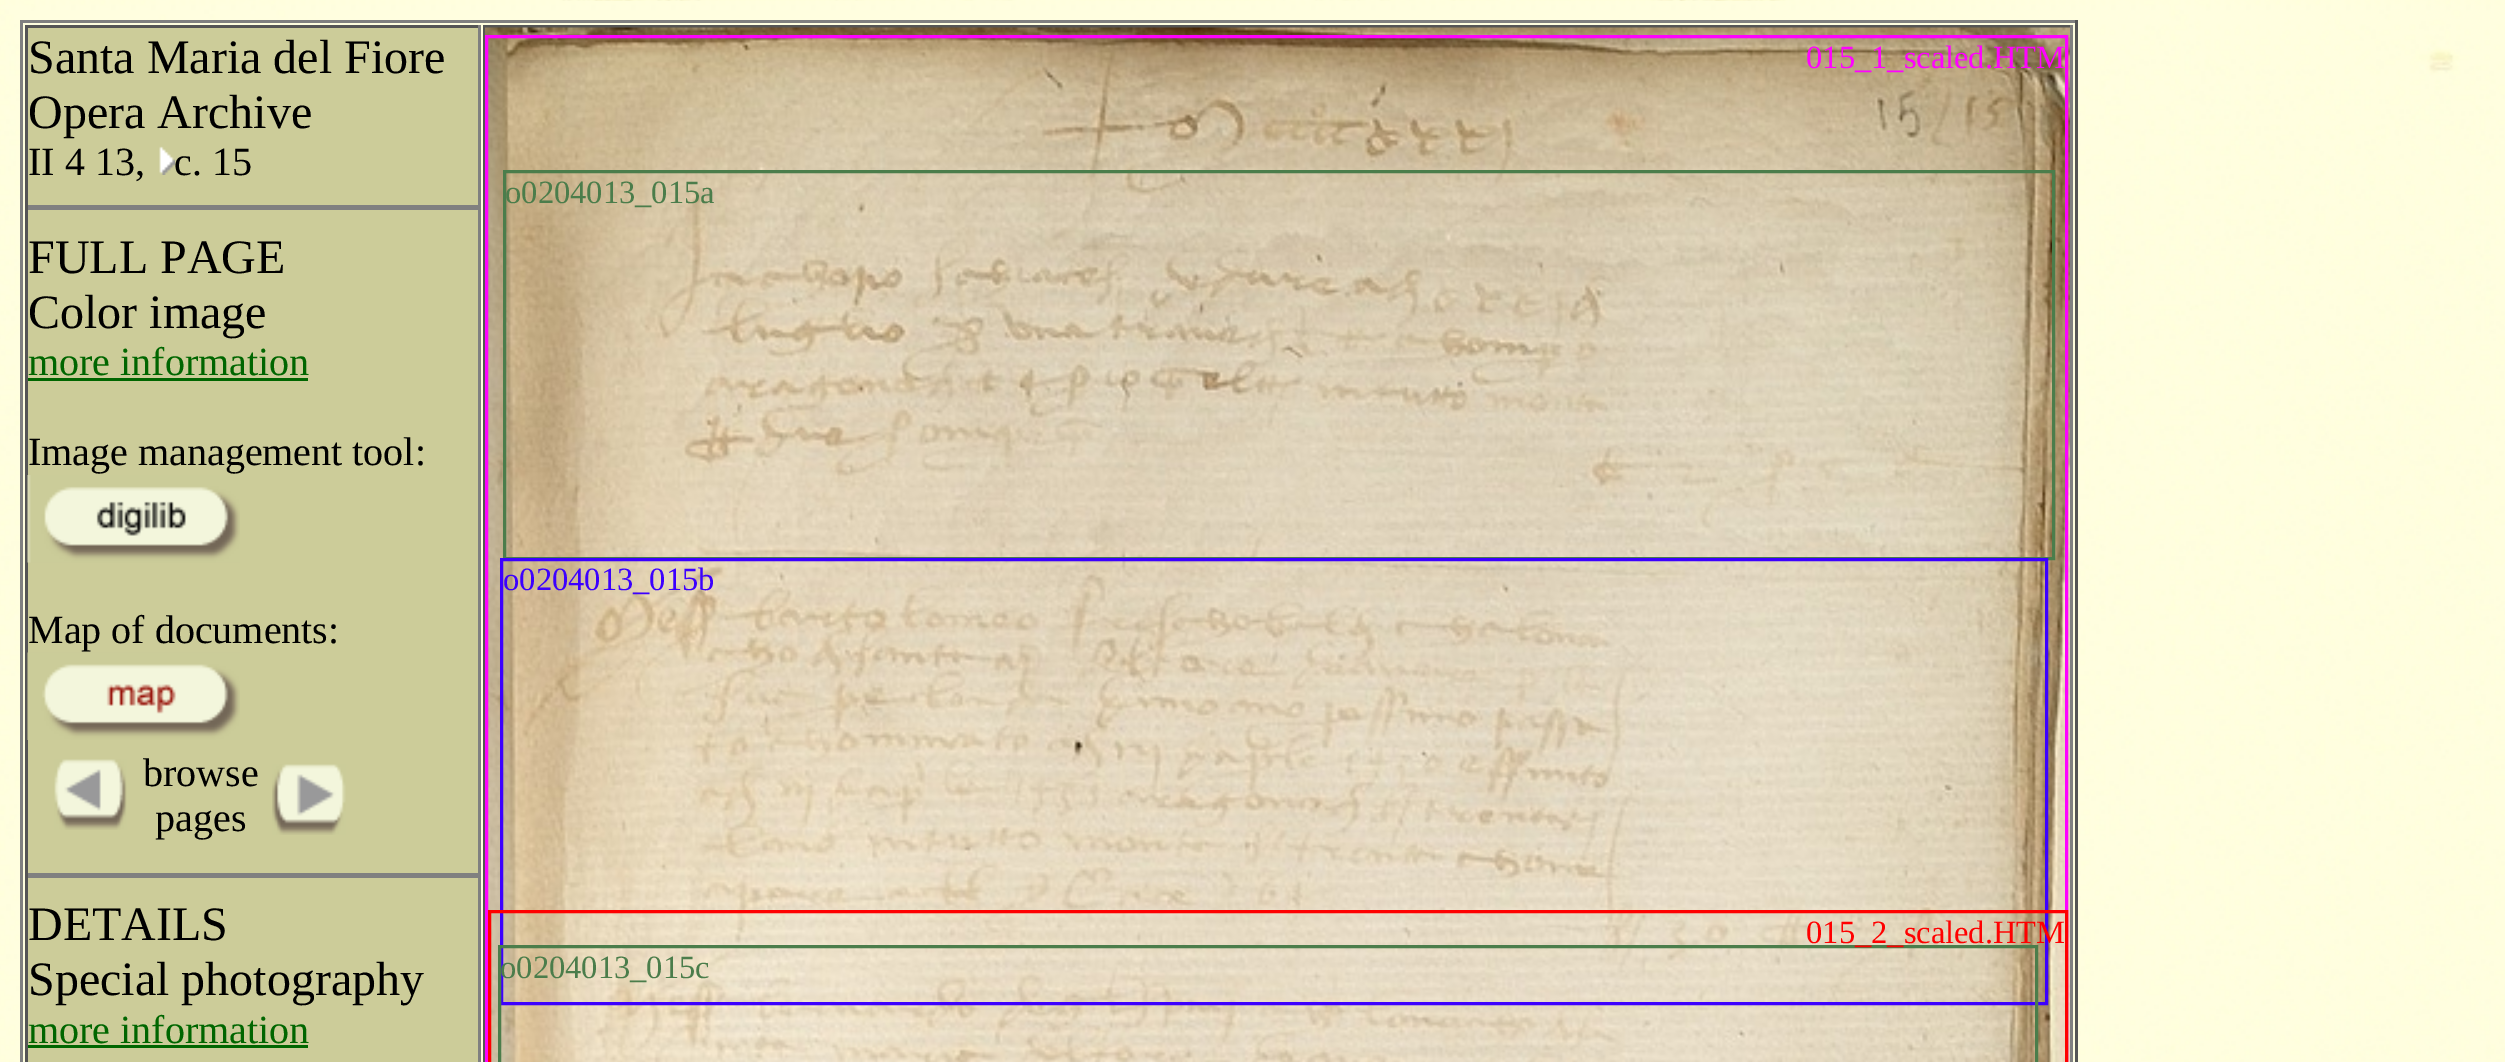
%!PS
<< /PageSize [2505 1062] >> setpagedevice
/rgb { dup -16 bitshift 255 div exch dup -8 bitshift 255 and 255 div exch 255 and 255 div setrgbcolor } def
/font { [ exch dup neg 0 0 3 -1 roll 0 0 ] selectfont } def
/text { moveto show } def
/picture { 5 dict begin { /h /w /y /x /name } { exch def } forall
  gsave x y translate w h scale
  w h 8 [w 0 0 h 0 0] name (r) file false 3 colorimage grestore end } def
0 1062 translate 1 -1 scale
4 setmiterlimit
/s1 { /LiberationSerif-Regular 48 font 16#000000 rgb } def
/s2 { /LiberationSerif-Regular 40 font 16#000000 rgb } def
/s3 { /LiberationSerif-Regular 40 font 16#006600 rgb } def
/s4 { /LiberationSerif-Regular 32.5 font 16#FF02FF rgb } def
/s5 { /LiberationSerif-Regular 32.5 font 16#4B7D4B rgb } def
/s6 { /LiberationSerif-Regular 32.5 font 16#3C00FF rgb } def
/s7 { /LiberationSerif-Regular 32.5 font 16#FF0000 rgb } def
16#FFFFFF rgb
0 0 2505 1062 rectfill
(pic1.raw) 0 0 2505 1062 picture
16#808080 rgb
20 20 2058 3 rectfill
16#555555 rgb
2075 20 3 1042 rectfill
16#808080 rgb
20 20 3 1042 rectfill
16#CCCC99 rgb
28 28 450 1034 rectfill
16#555555 rgb
25 25 455 3 rectfill
16#808080 rgb
478 25 3 1037 rectfill
16#555555 rgb
25 25 3 1037 rectfill
s1
(Santa Maria del Fiore) 28 73 text
(Opera Archive) 28 128 text
s2
(II 4 13,) 28 175 text
(pic2.raw) 159 146 16 29 picture
(c. 15) 174 175 text
16#808080 rgb
28 205 450 5 rectfill
s1
(FULL PAGE) 28 273 text
(Color image) 28 328 text
s3
(more information) 28 375 text
28 378 280 3 rectfill
s2
(Image management tool:) 28 465 text
(pic3.raw) 27 475 213 88 picture
(Map of documents:) 28 643 text
(pic4.raw) 27 652 213 88 picture
(pic5.raw) 54 759 73 71 picture
(browse) 143 786 text
(pages) 155 831 text
(pic6.raw) 272 764 74 71 picture
16#808080 rgb
28 873 450 5 rectfill
s1
(DETAILS) 28 940 text
(Special photography) 28 995 text
s3
(more information) 28 1043 text
28 1045 280 3 rectfill
16#555555 rgb
483 25 1590 3 rectfill
16#808080 rgb
2070 25 3 1037 rectfill
16#555555 rgb
483 25 3 1037 rectfill
(pic7.raw) 485 27 1585 1035 picture
16#4B7D4B rgb
3 setlinewidth
504.5 171.5 1549 387 rectstroke
16#3C00FF rgb
501.5 559.5 1545 444 rectstroke
16#4B7D4B rgb
499.5 946.5 1537 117 rectstroke
16#FF02FF rgb
486.5 36.5 1580 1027 rectstroke
s4
(015_1_scaled.HTM) 1806 68 text
s5
(o0204013_015a) 505 203 text
s6
(o0204013_015b) 503 590 text
16#FF0000 rgb
489.5 911.5 1577 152 rectstroke
(015_2_scaled.HTM) 1806 943 text
s5
(o0204013_015c) 500 978 text
showpage
